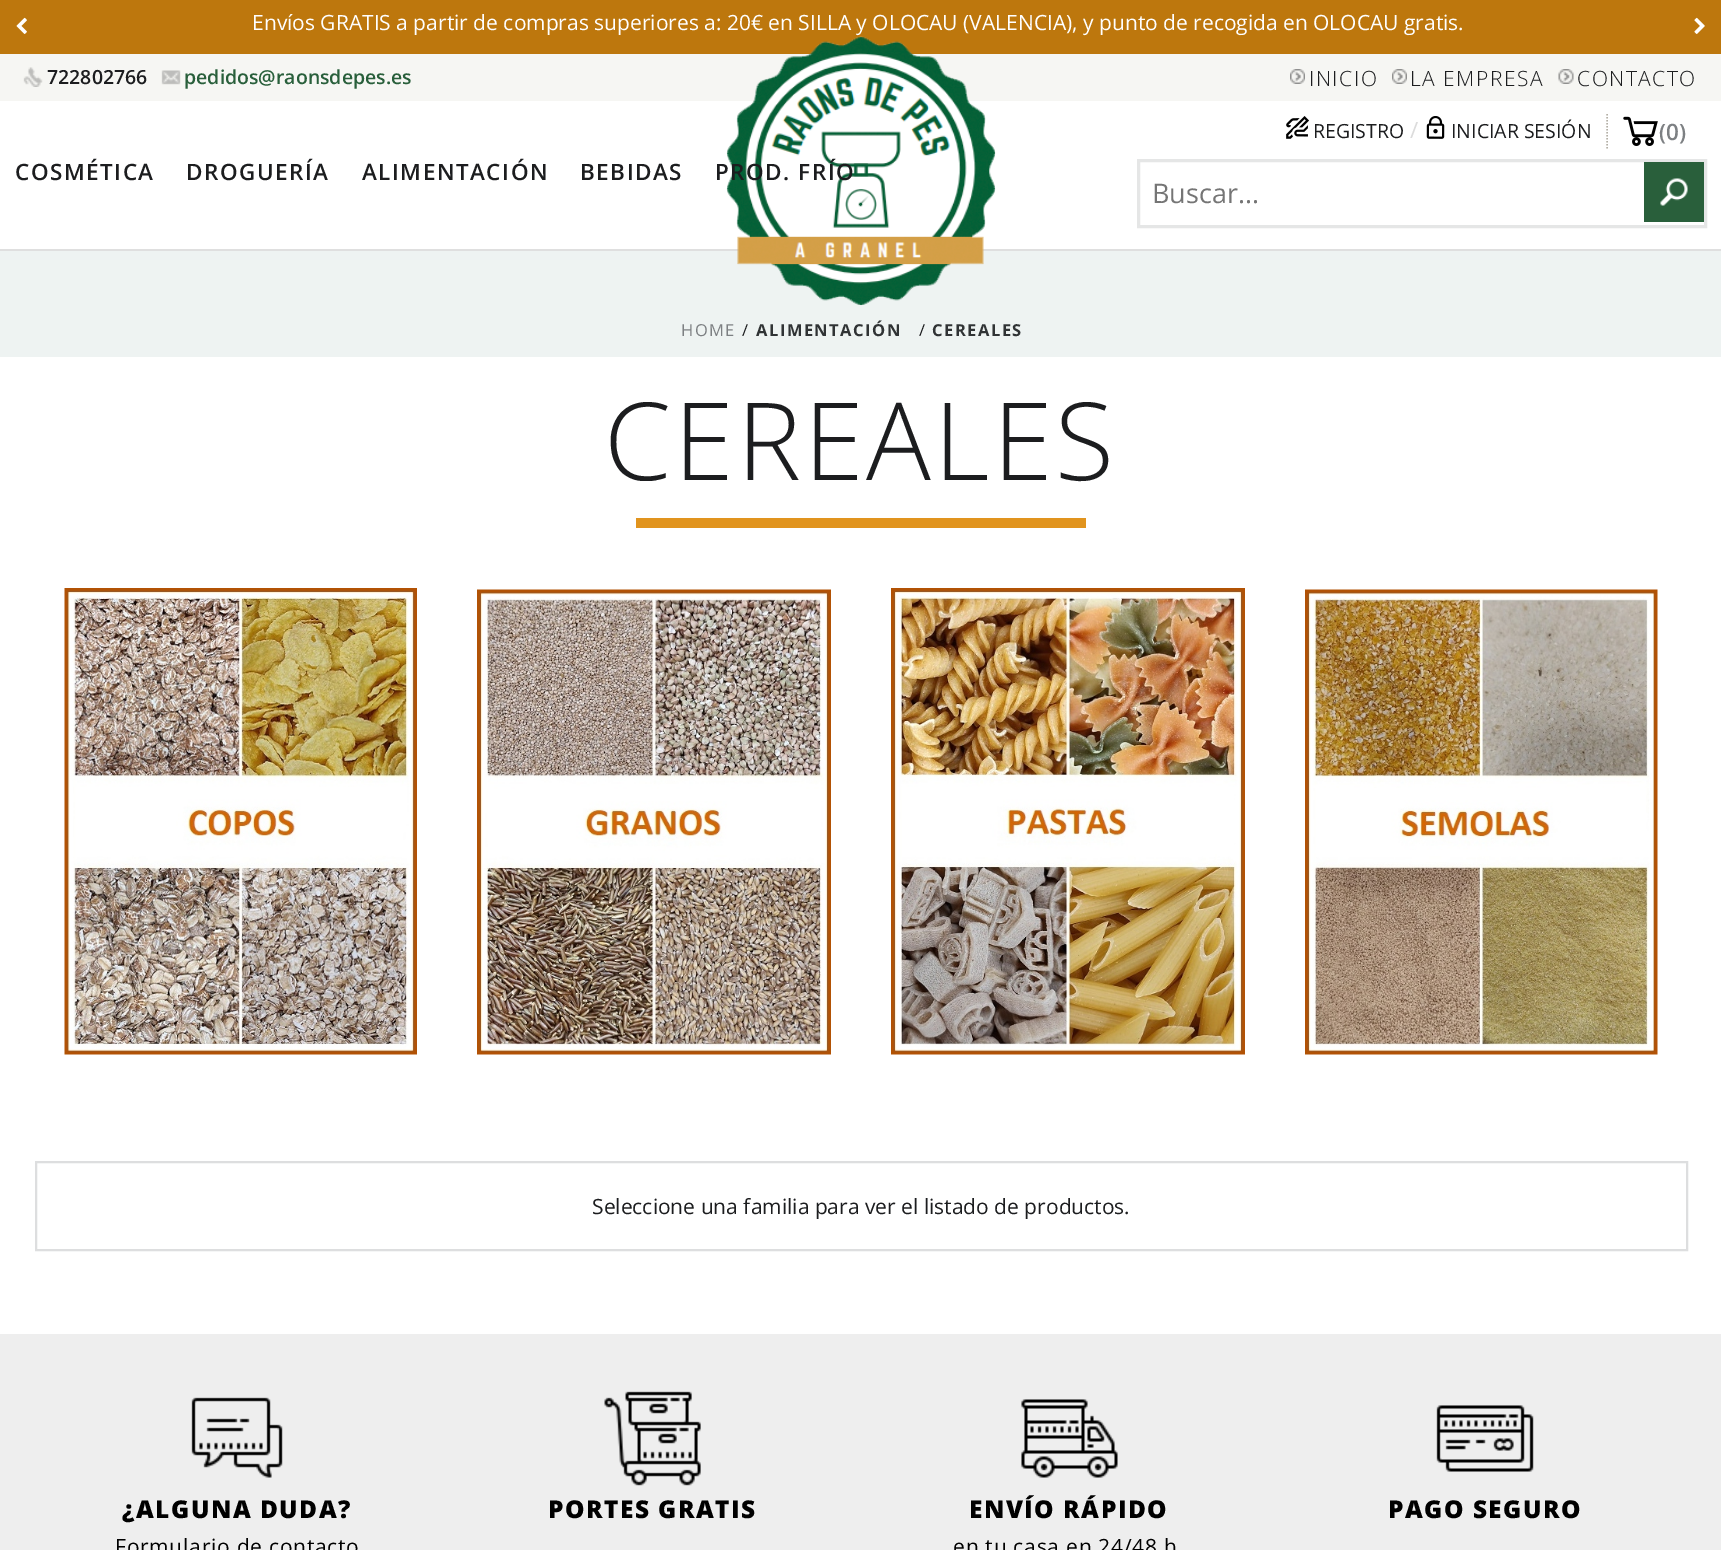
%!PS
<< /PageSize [1721 1550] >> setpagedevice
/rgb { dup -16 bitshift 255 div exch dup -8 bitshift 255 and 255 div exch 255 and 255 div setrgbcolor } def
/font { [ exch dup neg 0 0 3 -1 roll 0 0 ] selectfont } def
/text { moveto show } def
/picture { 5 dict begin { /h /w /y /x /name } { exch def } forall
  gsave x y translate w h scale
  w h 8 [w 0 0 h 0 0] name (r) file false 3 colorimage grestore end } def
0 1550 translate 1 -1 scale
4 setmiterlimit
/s1 { /OpenSans-Regular 21 font 16#FFFFFF rgb } def
/s2 { /OpenSans-SemiBold 19.5 font 16#1C1D1F rgb } def
/s3 { /OpenSans-SemiBold 19.5 font 16#295F3B rgb } def
/s4 { /OpenSans-Regular 19.5 font 16#1C1D1F rgb } def
/s5 { /OpenSans-Regular 22.5 font 16#DCDCDC rgb } def
/s6 { /OpenSans-SemiBold 22.5 font 16#7D8083 rgb } def
/s7 { /OpenSans-Regular 27 font 16#757575 rgb } def
/s8 { /OpenSans-Regular 21 font 16#1C1D1F rgb } def
16#FFFFFF rgb
0 0 1721 1550 rectfill
16#F6F6F3 rgb
0 54 1721 47 rectfill
16#DFDFDF rgb
0 249 1721 2 rectfill
16#BD770D rgb
0 0 1721 54 rectfill
(pic1.raw) 16 17 11 17 picture
s1
(Envíos GRATIS a partir de compras superiores a: 20€ en SILLA y OLOCAU \(VALENCIA\), y punto de recogida en OLOCAU gratis.) 252 30 text
(pic2.raw) 1694 17 11 17 picture
(pic3.raw) 23 67 20 20 picture
s2
(722802766) 47 84 text
(pic4.raw) 161 70 20 15 picture
s3
(pedidos@raonsdepes.es) 184 84 text
16#EEF3F2 rgb
0 251 1721 106 rectfill
(pic5.raw) 726 36 270 270 picture
(pic6.raw) 1290 69 15 15 picture
/OpenSans-Light 21 font
16#1C1D1F rgb
1309 86 moveto 1.5 0 (INICIO) ashow
(pic7.raw) 1392 69 15 15 picture
1410 86 moveto 1.5 0 (LA EMPRESA) ashow
(pic8.raw) 1558 69 16 15 picture
1577 86 moveto 1.5 0 (CONTACTO) ashow
16#B3AFA6 rgb
1.5 setlinewidth
[1.5 1.5] 0 setdash
1607 114 moveto 1607 148.5 lineto stroke
(pic9.raw) 1286 116 23 23 picture
s4
(REGISTRO) 1313 138 text
s5
(/) 1410 138 text
(pic10.raw) 1426 116 19 23 picture
s4
(INICIAR SESIÓN) 1451 138 text
(pic11.raw) 1623 116 35 30 picture
s6
(\(0\)) 1659 140 text
16#1C1D1F rgb
15 180 moveto 1.5 0 (COSMÉTICA) ashow
186 180 moveto 1.5 0 (DROGUERÍA) ashow
362 180 moveto 1.5 0 (ALIMENTACIÓN) ashow
580 180 moveto 1.5 0 (BEBIDAS) ashow
715 180 moveto 1.5 0 (PROD. FRÍO) ashow
16#E5E6E6 rgb
3 setlinewidth
[] 0 setdash
1138.5 160.5 567 66 rectstroke
s7
(Buscar...) 1152 203 text
16#295F3B rgb
1644 162 60 60 rectfill
(pic12.raw) 1660 178 28 28 picture
/OpenSans-Regular 16.5 font
16#7D8083 rgb
681 336 moveto 1.5 0 (HOME) ashow
16#1C1D1F rgb
742 336 moveto 1.5 0 (/) ashow
/OpenSans-Bold 16.5 font
16#303335 rgb
756 336 moveto 1.5 0 (ALIMENTACIÓN) ashow
/OpenSans-Regular 16.5 font
16#1C1D1F rgb
919 336 moveto 1.5 0 (/) ashow
/OpenSans-Bold 16.5 font
16#303335 rgb
932 336 moveto 1.5 0 (CEREALES) ashow
/OpenSans-Light 108 font
16#1C1D1F rgb
604 480 moveto 3 0 (CEREALES) ashow
16#E1941E rgb
636 518 450 10 rectfill
(pic13.raw) 64 588 353 467 picture
(pic14.raw) 477 589 354 466 picture
(pic15.raw) 891 588 354 467 picture
(pic16.raw) 1305 589 353 466 picture
16#DDDEDF rgb
2 setlinewidth
36 1162 1651 88 rectstroke
s8
(Seleccione una familia para ver el listado de productos.) 592 1214 text
16#EEEEEE rgb
0 1334 1721 216 rectfill
(pic17.raw) 191 1397 92 81 picture
/OpenSans-ExtraBold 24.5 font
16#000000 rgb
122 1518 moveto 1.5 0 (¿ALGUNA DUDA?) ashow
/OpenSans-Regular 21 font
115 1554 moveto 0.75 0 (Formulario de contacto) ashow
(pic18.raw) 604 1391 97 95 picture
/OpenSans-ExtraBold 24.5 font
548 1518 moveto 1.5 0 (PORTES GRATIS) ashow
(pic19.raw) 1021 1399 97 79 picture
969 1518 moveto 1.5 0 (ENVÍO RÁPIDO) ashow
/OpenSans-Regular 21 font
953 1554 moveto 0.75 0 (en tu casa en 24/48 h) ashow
(pic20.raw) 1436 1405 98 67 picture
/OpenSans-ExtraBold 24.5 font
1388 1518 moveto 1.5 0 (PAGO SEGURO) ashow
showpage
